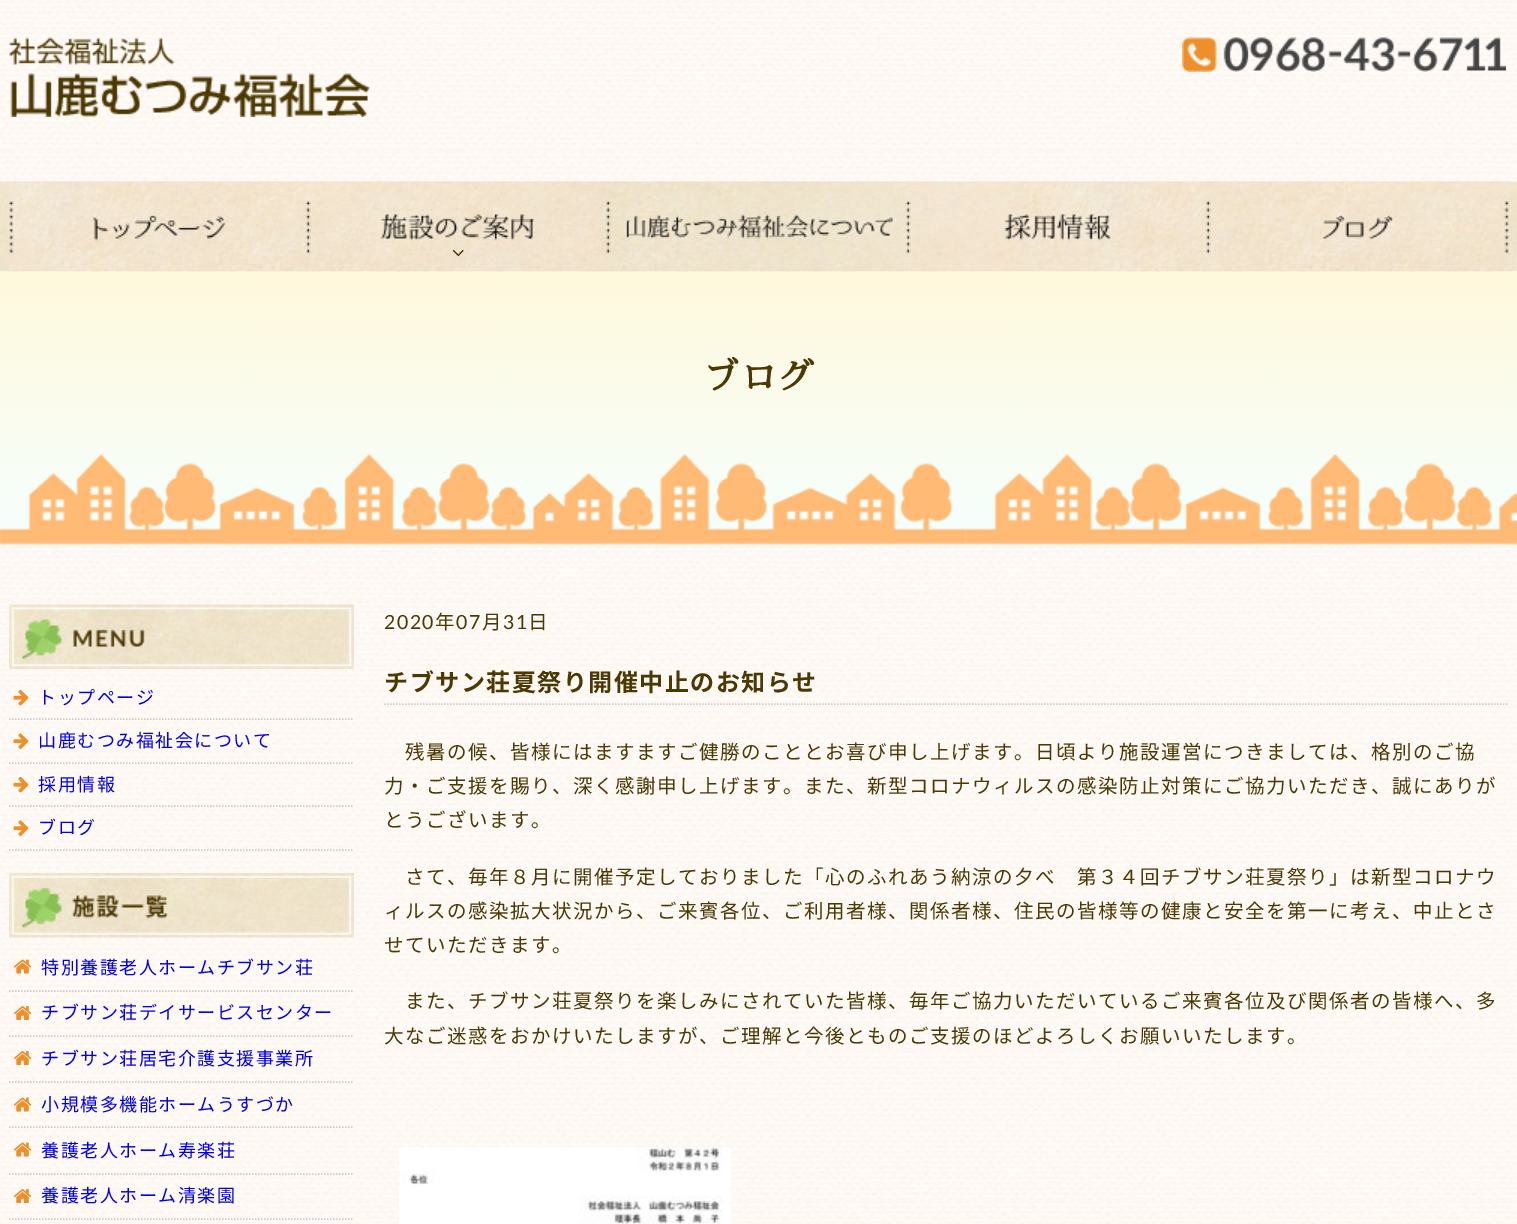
%!PS
<< /PageSize [1517 1224] >> setpagedevice
/rgb { dup -16 bitshift 255 div exch dup -8 bitshift 255 and 255 div exch 255 and 255 div setrgbcolor } def
/font { [ exch dup neg 0 0 3 -1 roll 0 0 ] selectfont } def
/picture { 5 dict begin { /h /w /y /x /name } { exch def } forall
  gsave x y translate w h scale
  w h 8 [w 0 0 h 0 0] name (r) file false 3 colorimage grestore end } def
0 1224 translate 1 -1 scale
4 setmiterlimit
16#FFFFFF rgb
0 0 1517 1224 rectfill
(pic1.raw) 0 0 1517 1224 picture
(pic2.raw) 9 37 362 80 picture
(pic3.raw) 1182 37 324 35 picture
(pic4.raw) 0 181 1517 91 picture
(pic5.raw) 9 181 300 91 picture
(pic6.raw) 309 181 300 91 picture
(pic7.raw) 452 249 12 8 picture
(pic8.raw) 609 181 300 91 picture
(pic9.raw) 909 181 300 91 picture
(pic10.raw) 1209 181 300 91 picture
(pic11.raw) 0 271 1517 274 picture
/SawarabiMincho-Bold 36 font
16#4B3802 rgb
703 390 moveto 1.5 0 (ブログ) ashow
(pic12.raw) 9 604 345 65 picture
16#CCCCCC rgb
1.5 setlinewidth
[1.5 1.5] 0 setdash
9 719 moveto 354 719 lineto stroke
(pic13.raw) 13 689 16 17 picture
/NotoSansJP-Regular 18 font
16#0000EE rgb
38 704 moveto 1.5 0 (トップページ) ashow
16#CCCCCC rgb
9 763 moveto 354 763 lineto stroke
(pic14.raw) 13 733 16 16 picture
16#0000EE rgb
38 747 moveto 1.5 0 (山鹿むつみ福祉会について) ashow
16#CCCCCC rgb
9 806 moveto 354 806 lineto stroke
(pic15.raw) 13 776 16 17 picture
16#0000EE rgb
38 791 moveto 1.5 0 (採用情報) ashow
16#CCCCCC rgb
9 850 moveto 354 850 lineto stroke
(pic16.raw) 13 820 16 16 picture
16#0000EE rgb
38 834 moveto 1.5 0 (ブログ) ashow
(pic17.raw) 9 873 345 65 picture
16#CCCCCC rgb
9 991 moveto 354 991 lineto stroke
(pic18.raw) 13 959 19 15 picture
16#0000EE rgb
41 974 moveto 1.5 0 (特別養護老人ホームチブサン荘) ashow
16#CCCCCC rgb
9 1036 moveto 354 1036 lineto stroke
(pic19.raw) 13 1006 19 14 picture
16#0000EE rgb
41 1019 moveto 1.5 0 (チブサン荘デイサービスセンター) ashow
16#CCCCCC rgb
9 1082 moveto 354 1082 lineto stroke
(pic20.raw) 13 1051 19 14 picture
16#0000EE rgb
41 1065 moveto 1.5 0 (チブサン荘居宅介護支援事業所) ashow
16#CCCCCC rgb
9 1127 moveto 354 1127 lineto stroke
(pic21.raw) 13 1097 19 15 picture
16#0000EE rgb
41 1111 moveto 1.5 0 (小規模多機能ホームうすづか) ashow
16#CCCCCC rgb
9 1174 moveto 354 1174 lineto stroke
(pic22.raw) 13 1142 19 15 picture
16#0000EE rgb
41 1157 moveto 1.5 0 (養護老人ホーム寿楽荘) ashow
16#CCCCCC rgb
9 1219 moveto 354 1219 lineto stroke
(pic23.raw) 13 1189 19 14 picture
16#0000EE rgb
41 1202 moveto 1.5 0 (養護老人ホーム清楽園) ashow
/Lato-Regular 19.5 font
16#4B3802 rgb
384 629 moveto 1.5 0 (2020) ashow
/NotoSansJP-Regular 19.5 font
435 629 moveto 1.5 0 (年) ashow
/Lato-Regular 19.5 font
456 629 moveto 1.5 0 (07) ashow
/NotoSansJP-Regular 19.5 font
482 629 moveto 1.5 0 (月) ashow
/Lato-Regular 19.5 font
503 629 moveto 1.5 0 (31) ashow
/NotoSansJP-Regular 19.5 font
528 629 moveto 1.5 0 (日) ashow
16#CCCCCC rgb
384 704 moveto 1509 704 lineto stroke
/NotoSansJP-Bold 24 font
16#4B3802 rgb
384 691 moveto 1.5 0 (チブサン荘夏祭り開催中止のお知らせ) ashow
/NotoSansJP-Regular 19.5 font
405 759 moveto 1.5 0 (残暑の候、皆様にはますますご健勝のこととお喜び申し上げます。日頃より施設運営につきましては、格別のご協) ashow
384 793 moveto 1.5 0 (力・ご支援を賜り、深く感謝申し上げます。また、新型コロナウィルスの感染防止対策にご協力いただき、誠にありが) ashow
384 827 moveto 1.5 0 (とうございます。) ashow
405 884 moveto 1.5 0 (さて、毎年８月に開催予定しておりました「心のふれあう納涼の夕べ　第３４回チブサン荘夏祭り」は新型コロナウ) ashow
384 918 moveto 1.5 0 (ィルスの感染拡大状況から、ご来賓各位、ご利用者様、関係者様、住民の皆様等の健康と安全を第一に考え、中止とさ) ashow
384 952 moveto 1.5 0 (せていただきます。) ashow
405 1008 moveto 1.5 0 (また、チブサン荘夏祭りを楽しみにされていた皆様、毎年ご協力いただいているご来賓各位及び関係者の皆様へ、多) ashow
384 1043 moveto 1.5 0 (大なご迷惑をおかけいたしますが、ご理解と今後とものご支援のほどよろしくお願いいたします。) ashow
(pic24.raw) 399 1147 332 77 picture
showpage
